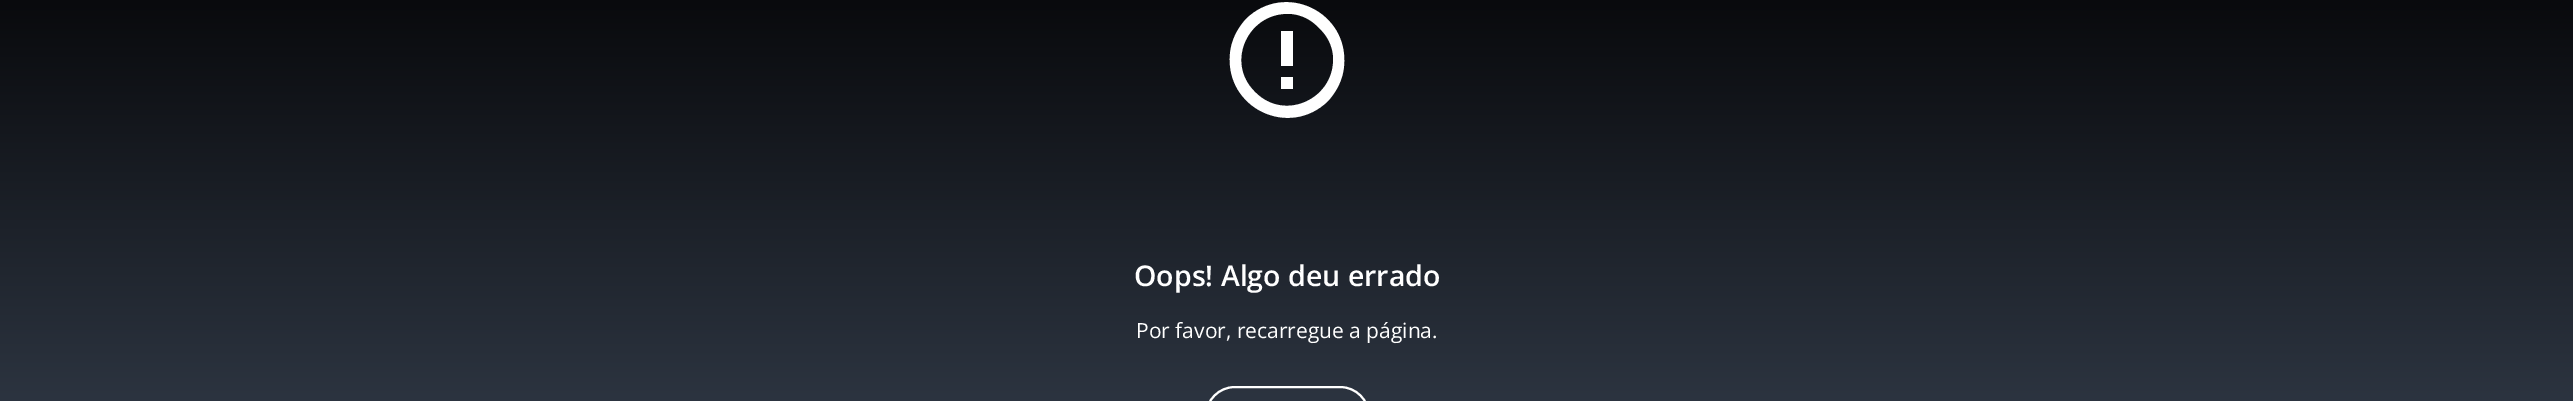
%!PS
<< /PageSize [2573 401] >> setpagedevice
/rgb { dup -16 bitshift 255 div exch dup -8 bitshift 255 and 255 div exch 255 and 255 div setrgbcolor } def
/font { [ exch dup neg 0 0 3 -1 roll 0 0 ] selectfont } def
/text { moveto show } def
/roundrect { 5 dict begin { /r /h /w /y /x } { exch def } forall
  x r add y moveto x w add y 2 copy h add r arct x w add y h add x 1 index r arct
  x y h add x y r arct x y 2 copy exch w add exch r arct closepath end } def
0 401 translate 1 -1 scale
4 setmiterlimit
/s1 { /OpenSans-SemiBold 28.5 font 16#FFFFFF rgb } def
/s2 { /OpenSans-Regular 21 font 16#FFFFFF rgb } def
16#FFFFFF rgb
0 0 2573 401 rectfill
gsave 0 0 moveto 2573 0 lineto 2573 401 lineto 0 401 lineto closepath clip newpath
<< /ShadingType 2 /ColorSpace /DeviceRGB /Coords [1287 0 1287 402] /Extend [true true] /Function << /FunctionType 2 /Domain [0 1] /C0 [0.035 0.039 0.051] /C1 [0.173 0.204 0.251] /N 1 >> >> shfill grestore
1255 92 moveto 1285 123 1337 98 1333 55 curveto 1332 45 1327 35 1319 28 curveto 1312 20 1302 15 1292 14 curveto 1249 10 1224 62 1255 92 curveto closepath 1246 19 moveto 1285 -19 1349 12 1344 66 curveto 1343 79 1337 91 1328 101 curveto 1289 139 1225 108 1230 54 curveto 1231 41 1237 29 1246 19 curveto closepath 1281 31 moveto 1293 31 lineto 1293 66 lineto 1281 66 lineto closepath 1281 77 moveto 1293 77 lineto 1293 89 lineto 1281 89 lineto closepath fill
s1
(Oops! Algo deu errado) 1134 286 text
s2
(Por favor, recarregue a página.) 1136 338 text
2 setlinewidth
1206 387 163 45 29 roundrect stroke
showpage
